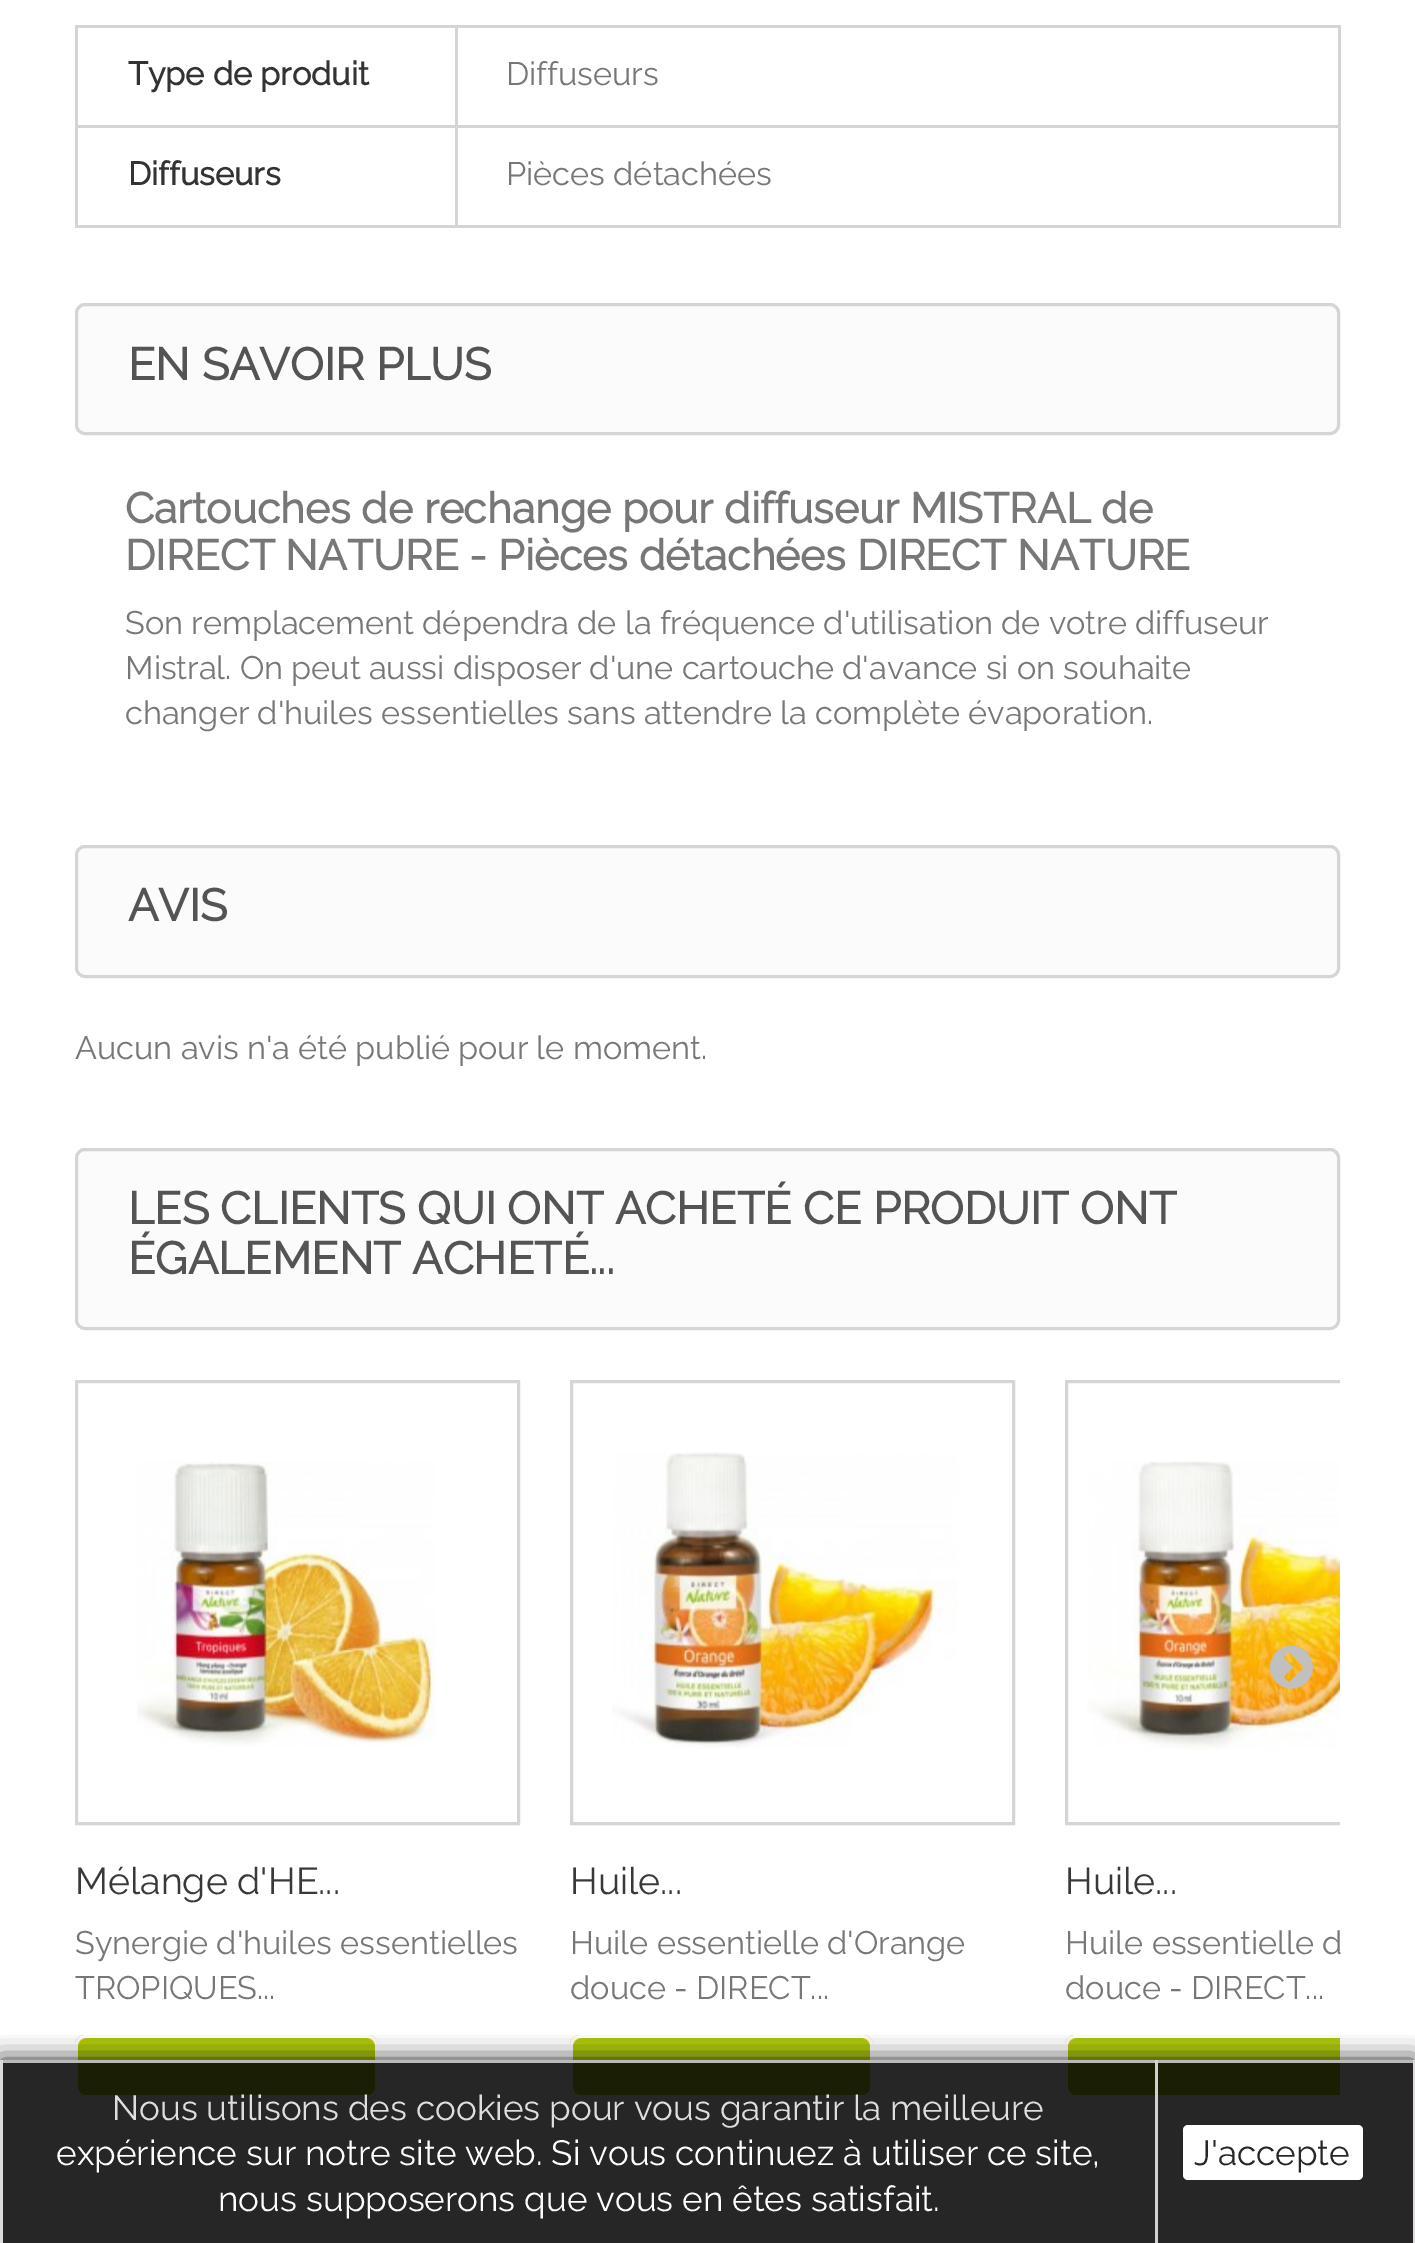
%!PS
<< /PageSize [1415 2243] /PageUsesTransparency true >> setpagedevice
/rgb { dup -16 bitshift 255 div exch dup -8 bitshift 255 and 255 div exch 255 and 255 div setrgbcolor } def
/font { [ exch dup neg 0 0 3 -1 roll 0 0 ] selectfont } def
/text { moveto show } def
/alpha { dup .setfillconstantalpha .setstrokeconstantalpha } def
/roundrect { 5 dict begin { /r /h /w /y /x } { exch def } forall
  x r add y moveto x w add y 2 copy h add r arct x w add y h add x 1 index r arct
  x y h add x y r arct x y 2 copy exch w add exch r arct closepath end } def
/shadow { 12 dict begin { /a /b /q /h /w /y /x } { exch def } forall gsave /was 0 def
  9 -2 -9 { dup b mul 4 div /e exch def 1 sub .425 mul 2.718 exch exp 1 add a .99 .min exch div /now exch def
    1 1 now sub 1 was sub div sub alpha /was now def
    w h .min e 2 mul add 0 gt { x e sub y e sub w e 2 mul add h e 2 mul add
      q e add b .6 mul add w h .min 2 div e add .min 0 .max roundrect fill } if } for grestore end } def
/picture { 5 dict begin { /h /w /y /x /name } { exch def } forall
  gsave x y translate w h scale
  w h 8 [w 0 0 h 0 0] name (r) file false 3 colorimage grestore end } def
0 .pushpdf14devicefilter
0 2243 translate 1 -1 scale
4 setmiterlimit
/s1 { /Raleway-Bold 32.5 font 16#333333 rgb } def
/s2 { /Raleway-Thin 32.5 font 16#777777 rgb } def
/s3 { /Raleway-Bold 45 font 16#555454 rgb } def
/s4 { /Raleway-Bold 42.5 font 16#777777 rgb } def
/s5 { /Raleway-Thin 37.5 font 16#3A3939 rgb } def
/s6 { /Raleway-Thin 35 font 16#DEDEDE rgb } def
/s7 { /Raleway-Thin 35 font 16#FFFFFF rgb } def
/s8 { /Raleway-Thin 35 font 16#262626 rgb } def
16#FFFFFF rgb
0 0 1415 2243 rectfill
16#D6D4D4 rgb
75 225 1265 3 rectfill
75 25 1265 3 rectfill
s1
(Type de produit) 128 85 text
s2
(Diffuseurs) 506 85 text
16#D6D4D4 rgb
75 125 1265 3 rectfill
75 25 3 203 rectfill
s1
(Diffuseurs) 128 185 text
16#D6D4D4 rgb
1338 25 3 203 rectfill
455 25 3 203 rectfill
s2
(Pièces détachées) 506 185 text
16#FBFBFB rgb
76.5 304.5 1262 129 8.5 roundrect gsave fill grestore
16#D6D4D4 rgb
3 setlinewidth
stroke
s3
(EN SAVOIR PLUS) 128 380 text
s4
(Cartouches de rechange pour diffuseur MISTRAL de) 125 523 text
(DIRECT NATURE - Pièces détachées DIRECT NATURE) 125 570 text
s2
(Son remplacement dépendra de la fréquence d'utilisation de votre diffuseur) 125 634 text
(Mistral. On peut aussi disposer d'une cartouche d'avance si on souhaite) 125 679 text
(changer d'huiles essentielles sans attendre la complète évaporation.) 125 724 text
16#FBFBFB rgb
76.5 846.5 1262 130 8.5 roundrect gsave fill grestore
16#D6D4D4 rgb
stroke
s3
(AVIS) 128 921 text
s2
(Aucun avis n'a été publié pour le moment.) 75 1059 text
16#FBFBFB rgb
76.5 1149.5 1262 179 8.5 roundrect gsave fill grestore
16#D6D4D4 rgb
stroke
s3
(LES CLIENTS QUI ONT ACHETÉ CE PRODUIT ONT) 128 1224 text
(ÉGALEMENT ACHETÉ...) 128 1274 text
gsave
75 1380 1265 718 rectclip
16#D6D4D4 rgb
1066.5 1381.5 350 442 rectstroke
grestore
(pic5.raw) 1087 1461 253 289 picture
(pic1.raw) 1270 1645 43 44 picture
16#D6D4D4 rgb
76.5 1381.5 442 442 rectstroke
(pic2.raw) 137 1461 299 286 picture
s5
(Mélange d'HE...) 75 1894 text
s2
(Synergie d'huiles essentielles) 75 1954 text
(TROPIQUES...) 75 1999 text
16#F4B61B rgb
75 2035 303 63 10 roundrect fill
(pic3.raw) 75 2037 303 56 picture
16#FFFFFF rgb
76.5 2036.5 300 60 8.5 roundrect stroke
16#AFCA0B rgb
78 2038 297 57 10 roundrect fill
16#D6D4D4 rgb
571.5 1381.5 442 442 rectstroke
(pic4.raw) 612 1452 345 297 picture
s5
(Huile...) 570 1894 text
s2
(Huile essentielle d'Orange) 570 1954 text
(douce - DIRECT...) 570 1999 text
16#F4B61B rgb
570 2035 303 63 10 roundrect fill
(pic3.raw) 570 2037 303 56 picture
16#FFFFFF rgb
571.5 2036.5 300 60 8.5 roundrect stroke
16#AFCA0B rgb
573 2038 297 57 10 roundrect fill
s5
(Huile...) 1065 1894 text
s2
(Huile essentielle d) 1065 1954 text
(douce - DIRECT...) 1065 1999 text
16#F4B61B rgb
1075 2035 moveto 1340 2035 lineto 1340 2098 lineto 1075 2098 lineto 1069.5 2098 1065 2093.5 1065 2088 curveto 1065 2045 lineto 1065 2039.5 1069.5 2035 1075 2035 curveto closepath fill
(pic6.raw) 1065 2037 13 56 picture
gsave
75 1380 1265 718 rectclip
16#FFFFFF rgb
1066.5 2036.5 300 60 8.5 roundrect stroke
grestore
16#AFCA0B rgb
1078 2038 moveto 1340 2038 lineto 1340 2095 lineto 1078 2095 lineto 1072.5 2095 1068 2090.5 1068 2085 curveto 1068 2048 lineto 1068 2042.5 1072.5 2038 1078 2038 curveto closepath fill
gsave
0 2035 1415 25 rectclip
16#000000 rgb
0 2060 1415 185 0 12.5 0.85 shadow
grestore
0.85 alpha
16#000000 rgb
3 2060 1410 183 rectfill
16#D6D4D4 rgb
1155 2060 260 3 rectfill
1155 2060 3 183 rectfill
0 2060 1158 3 rectfill
1155 2060 3 183 rectfill
1 alpha
16#DCDADA rgb
0 2060 3 183 rectfill
s6
(Nous utilisons des cookies pour vous garantir la meilleure) 112 2120 text
s7
(expérience sur notre site web. Si vous continuez à utiliser ce site,) 56 2165 text
(nous supposerons que vous en êtes satisfait.) 218 2211 text
16#DCDADA rgb
1413 2060 2 183 rectfill
16#FFFFFF rgb
1183 2125 180 55 5 roundrect fill
s8
(J'accepte) 1194 2165 text
.poppdf14devicefilter showpage
